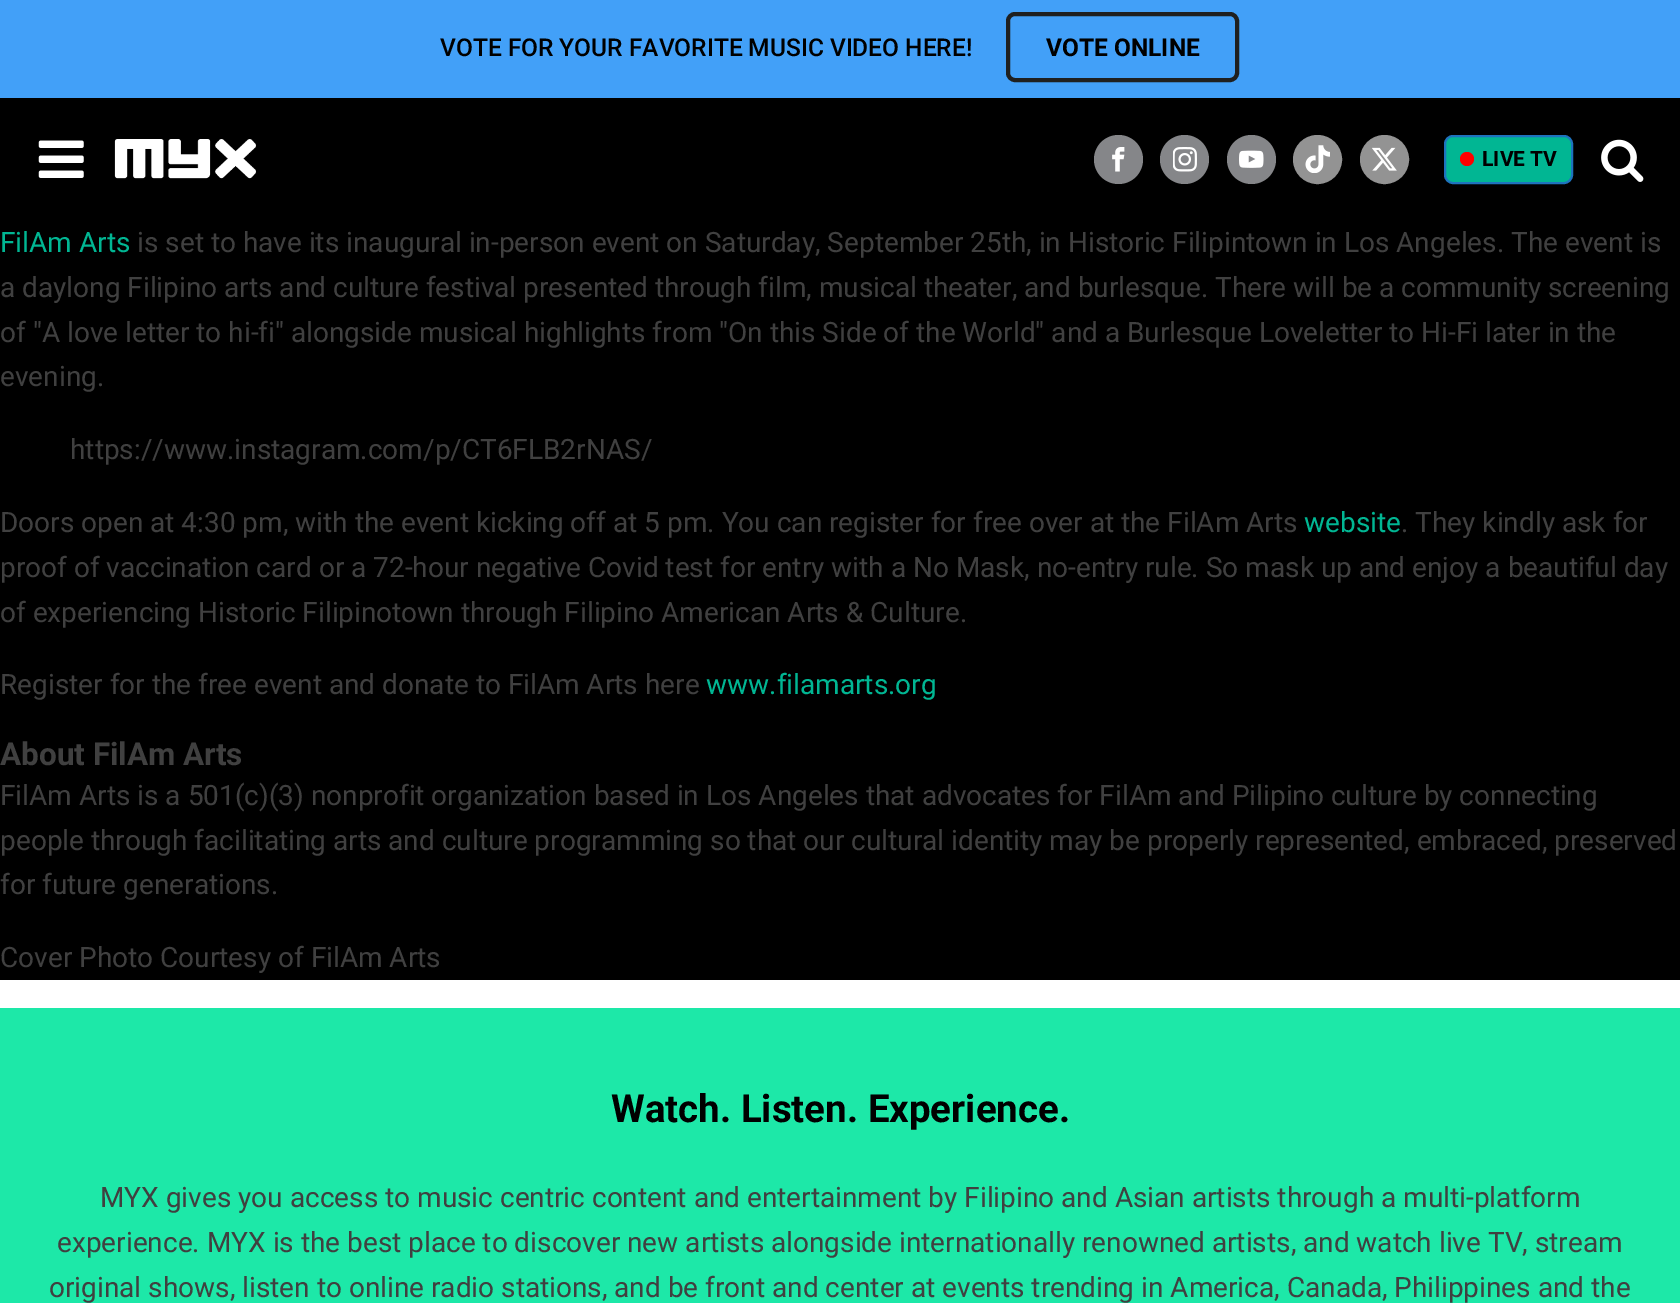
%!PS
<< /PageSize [1680 1303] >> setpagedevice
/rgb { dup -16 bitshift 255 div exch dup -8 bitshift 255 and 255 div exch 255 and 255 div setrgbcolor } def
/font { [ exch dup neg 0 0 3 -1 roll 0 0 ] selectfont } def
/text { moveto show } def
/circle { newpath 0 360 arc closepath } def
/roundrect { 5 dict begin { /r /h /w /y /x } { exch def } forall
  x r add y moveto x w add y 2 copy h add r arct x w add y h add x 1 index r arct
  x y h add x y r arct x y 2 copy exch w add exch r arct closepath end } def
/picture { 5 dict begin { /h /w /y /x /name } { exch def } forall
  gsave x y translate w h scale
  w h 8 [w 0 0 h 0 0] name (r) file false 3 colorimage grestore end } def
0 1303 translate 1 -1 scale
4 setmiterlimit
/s1 { /Roboto-Medium 24.5 font 16#000000 rgb } def
/s2 { /Roboto-Bold 24.5 font 16#000000 rgb } def
/s3 { /Roboto-Bold 21 font 16#000000 rgb } def
/s4 { /Roboto-Regular 28 font 16#01B693 rgb } def
/s5 { /Roboto-Regular 28 font 16#404040 rgb } def
/s6 { /Roboto-Bold 31.5 font 16#404040 rgb } def
/s7 { /Roboto-Bold 38.5 font 16#000000 rgb } def
16#FFFFFF rgb
0 0 1680 1303 rectfill
16#42A0F8 rgb
0 0 1680 98 rectfill
s1
(VOTE FOR YOUR FAVORITE MUSIC VIDEO HERE!) 440 56 text
16#1F2020 rgb
4 setlinewidth
1008 14 229 66 7 roundrect stroke
s2
(VOTE ONLINE) 1046 56 text
0 98 1680 882 rectfill
(pic1.raw) 38 140 46 38 picture
(pic2.raw) 114 139 143 40 picture
16#858689 rgb
1118.5 159.5 24.5 circle fill
(pic3.raw) 1112 147 13 25 picture
1184.5 159.5 24.5 circle fill
(pic4.raw) 1173 147 24 25 picture
1251.5 159.5 24.5 circle fill
(pic5.raw) 1239 150 25 18 picture
16#939393 rgb
1317.5 159.5 23.5 circle gsave fill grestore
2 setlinewidth
stroke
(pic6.raw) 1305 145 25 28 picture
1384.5 159.5 23.5 circle gsave fill grestore
stroke
(pic7.raw) 1372 147 25 24 picture
16#01B693 rgb
1445 136 127 47 8 roundrect gsave fill grestore
16#1E73BE rgb
stroke
16#FF0000 rgb
1467 159 7 circle fill
s3
(LIVE TV) 1482 166 text
(pic8.raw) 1601 139 43 43 picture
s4
(FilAm Arts) 0 252 text
s5
(is set to have its inaugural in-person event on Saturday, September 25th, in Historic Filipintown in Los Angeles. The event is) 137 252 text
(a daylong Filipino arts and culture festival presented through film, musical theater, and burlesque. There will be a community screening) 0 297 text
(of "A love letter to hi-fi" alongside musical highlights from "On this Side of the World" and a Burlesque Loveletter to Hi-Fi later in the) 0 342 text
(evening.) 0 386 text
(https://www.instagram.com/p/CT6FLB2rNAS/) 70 459 text
(Doors open at 4:30 pm, with the event kicking off at 5 pm. You can register for free over at the FilAm Arts) 0 532 text
s4
(website) 1304 532 text
s5
(. They kindly ask for) 1401 532 text
(proof of vaccination card or a 72-hour negative Covid test for entry with a No Mask, no-entry rule. So mask up and enjoy a beautiful day) 0 577 text
(of experiencing Historic Filipinotown through Filipino American Arts & Culture.) 0 622 text
(Register for the free event and donate to FilAm Arts here) 0 694 text
s4
(www.filamarts.org) 706 694 text
s6
(About FilAm Arts) 0 765 text
s5
(FilAm Arts is a 501\(c\)\(3\) nonprofit organization based in Los Angeles that advocates for FilAm and Pilipino culture by connecting) 0 805 text
(people through facilitating arts and culture programming so that our cultural identity may be properly represented, embraced, preserved) 0 850 text
(for future generations.) 0 894 text
(Cover Photo Courtesy of FilAm Arts) 0 967 text
16#1DE8A8 rgb
0 1008 1680 295 rectfill
s7
(Watch. Listen. Experience.) 611 1122 text
s5
(MYX gives you access to music centric content and entertainment by Filipino and Asian artists through a multi-platform) 100 1207 text
(experience. MYX is the best place to discover new artists alongside internationally renowned artists, and watch live TV, stream) 57 1252 text
(original shows, listen to online radio stations, and be front and center at events trending in America, Canada, Philippines and the) 49 1297 text
showpage
